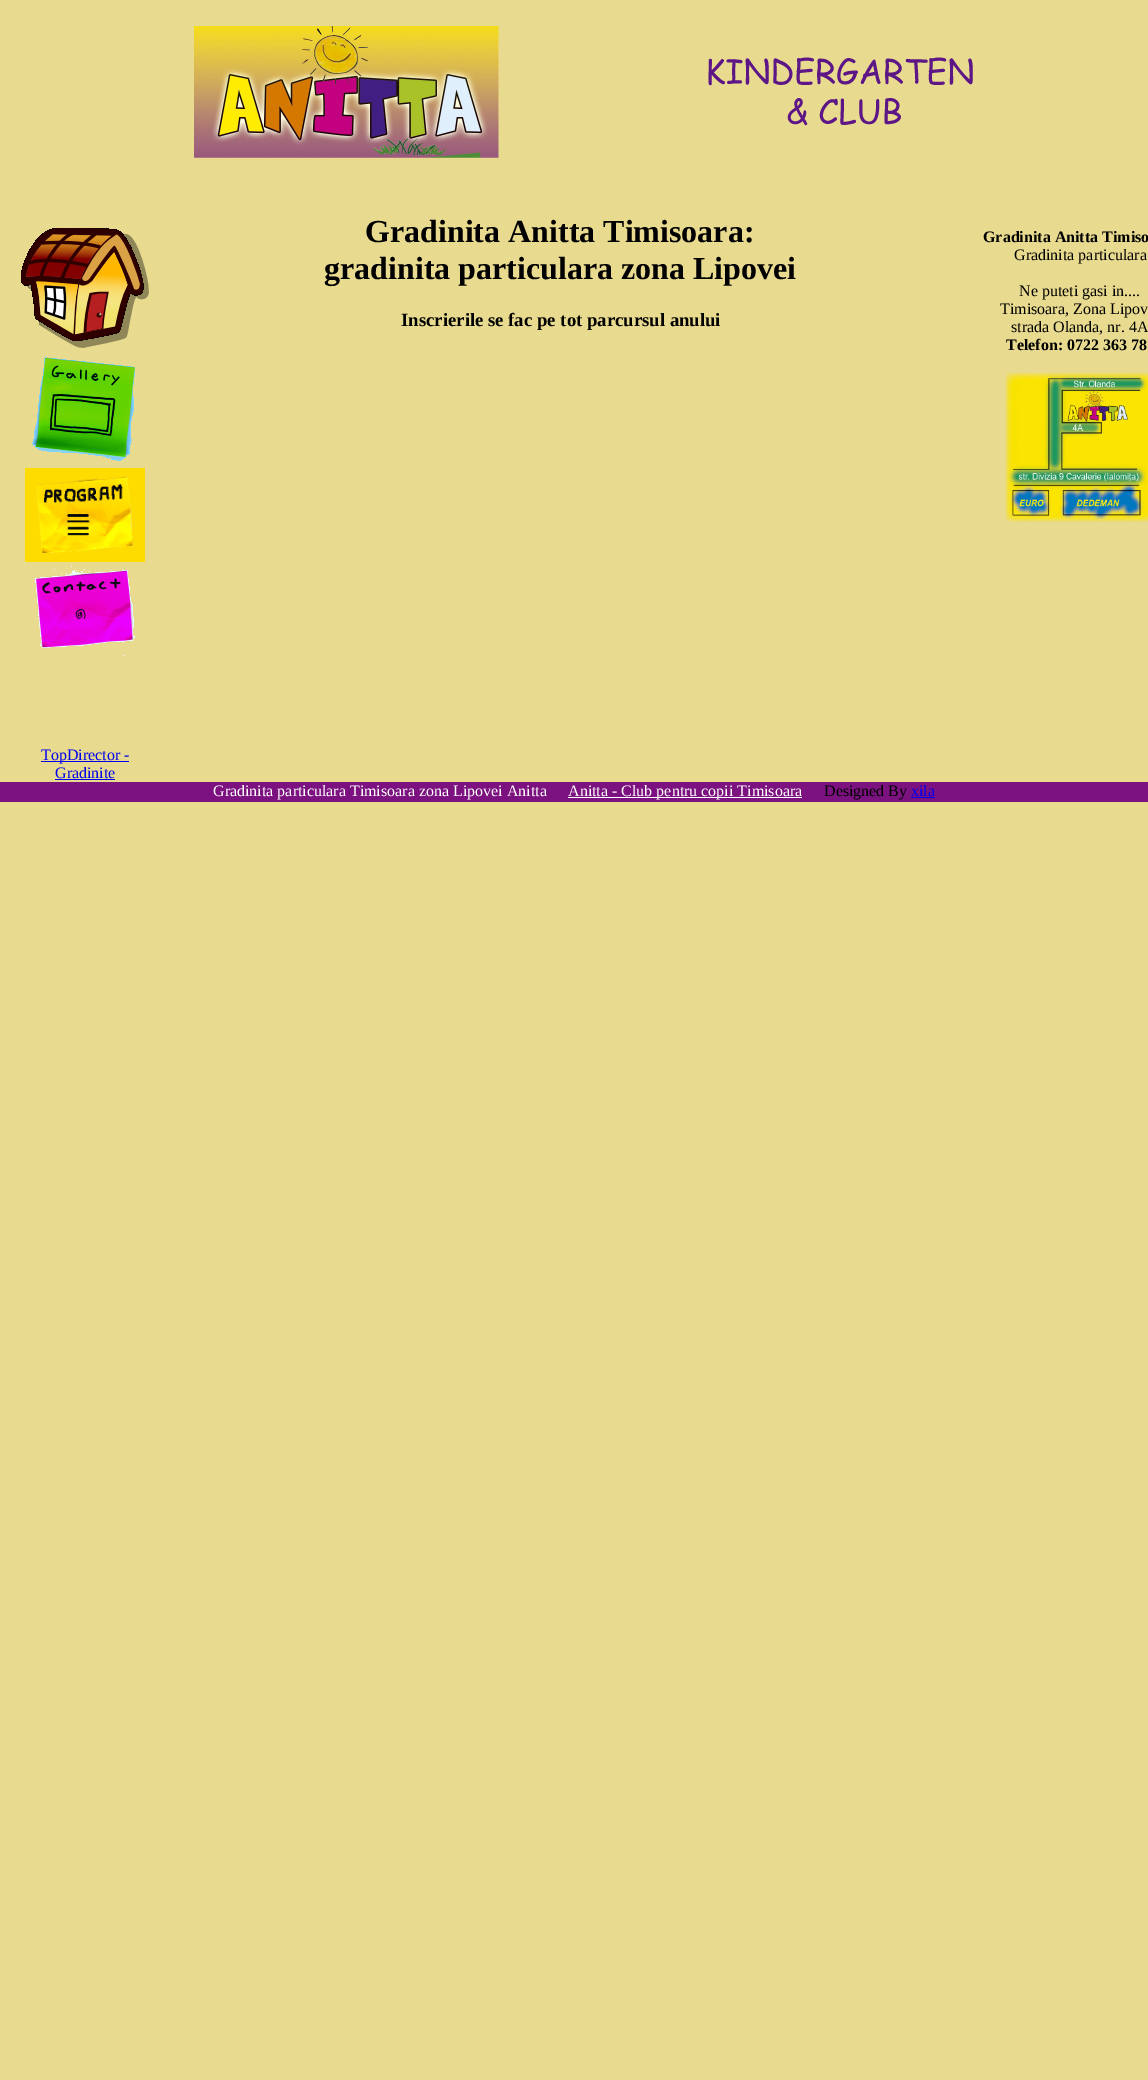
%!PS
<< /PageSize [1148 2080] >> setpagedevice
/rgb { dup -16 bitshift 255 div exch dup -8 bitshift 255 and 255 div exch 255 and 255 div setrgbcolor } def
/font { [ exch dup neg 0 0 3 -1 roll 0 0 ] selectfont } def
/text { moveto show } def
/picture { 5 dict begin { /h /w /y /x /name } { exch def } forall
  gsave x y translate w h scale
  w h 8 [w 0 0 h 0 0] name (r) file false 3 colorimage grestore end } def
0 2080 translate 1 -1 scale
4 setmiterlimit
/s1 { /LiberationSerif-Bold 32 font 16#000000 rgb } def
/s2 { /LiberationSerif-Bold 18.75 font 16#000000 rgb } def
/s3 { /LiberationSerif-Bold 16 font 16#000000 rgb } def
/s4 { /LiberationSerif-Regular 16 font 16#000000 rgb } def
/s5 { /LiberationSerif-Regular 16 font 16#0000EE rgb } def
/s6 { /LiberationSerif-Regular 16 font 16#FFFFFF rgb } def
16#E8DA8F rgb
0 0 1148 2080 rectfill
(pic1.raw) 194 26 779 132 picture
s1
(Gradinita Anitta Timisoara:) 365 242 text
(gradinita particulara zona Lipovei) 324 279 text
s2
(Inscrierile se fac pe tot parcursul anului) 401 326 text
s3
(Gradinita Anitta Timiso) 983 242 text
s4
(Gradinita particulara) 1014 260 text
(Ne puteti gasi in....) 1019 296 text
(Timisoara, Zona Lipov) 1000 314 text
(strada Olanda, nr. 4A) 1011 332 text
s3
(Telefon: 0722 363 78) 1006 350 text
(pic2.raw) 1005 372 143 150 picture
(pic3.raw) 21 228 123 113 picture
(pic4.raw) 21 228 128 120 picture
(pic5.raw) 32 357 103 104 picture
(pic6.raw) 25 468 120 94 picture
(pic7.raw) 36 476 98 78 picture
(pic8.raw) 35 566 100 90 picture
16#0000EE rgb
41 761 88 1 rectfill
s5
(TopDirector -) 41 760 text
(Gradinite) 55 778 text
55 779 60 1 rectfill
16#7C1280 rgb
0 782 1148 20 rectfill
s6
(Gradinita particulara Timisoara zona Lipovei Anitta) 213 796 text
568 797 234 1 rectfill
(Anitta - Club pentru copii Timisoara) 568 796 text
s4
(Designed By) 824 796 text
s5
(xila) 911 796 text
911 797 24 1 rectfill
showpage
